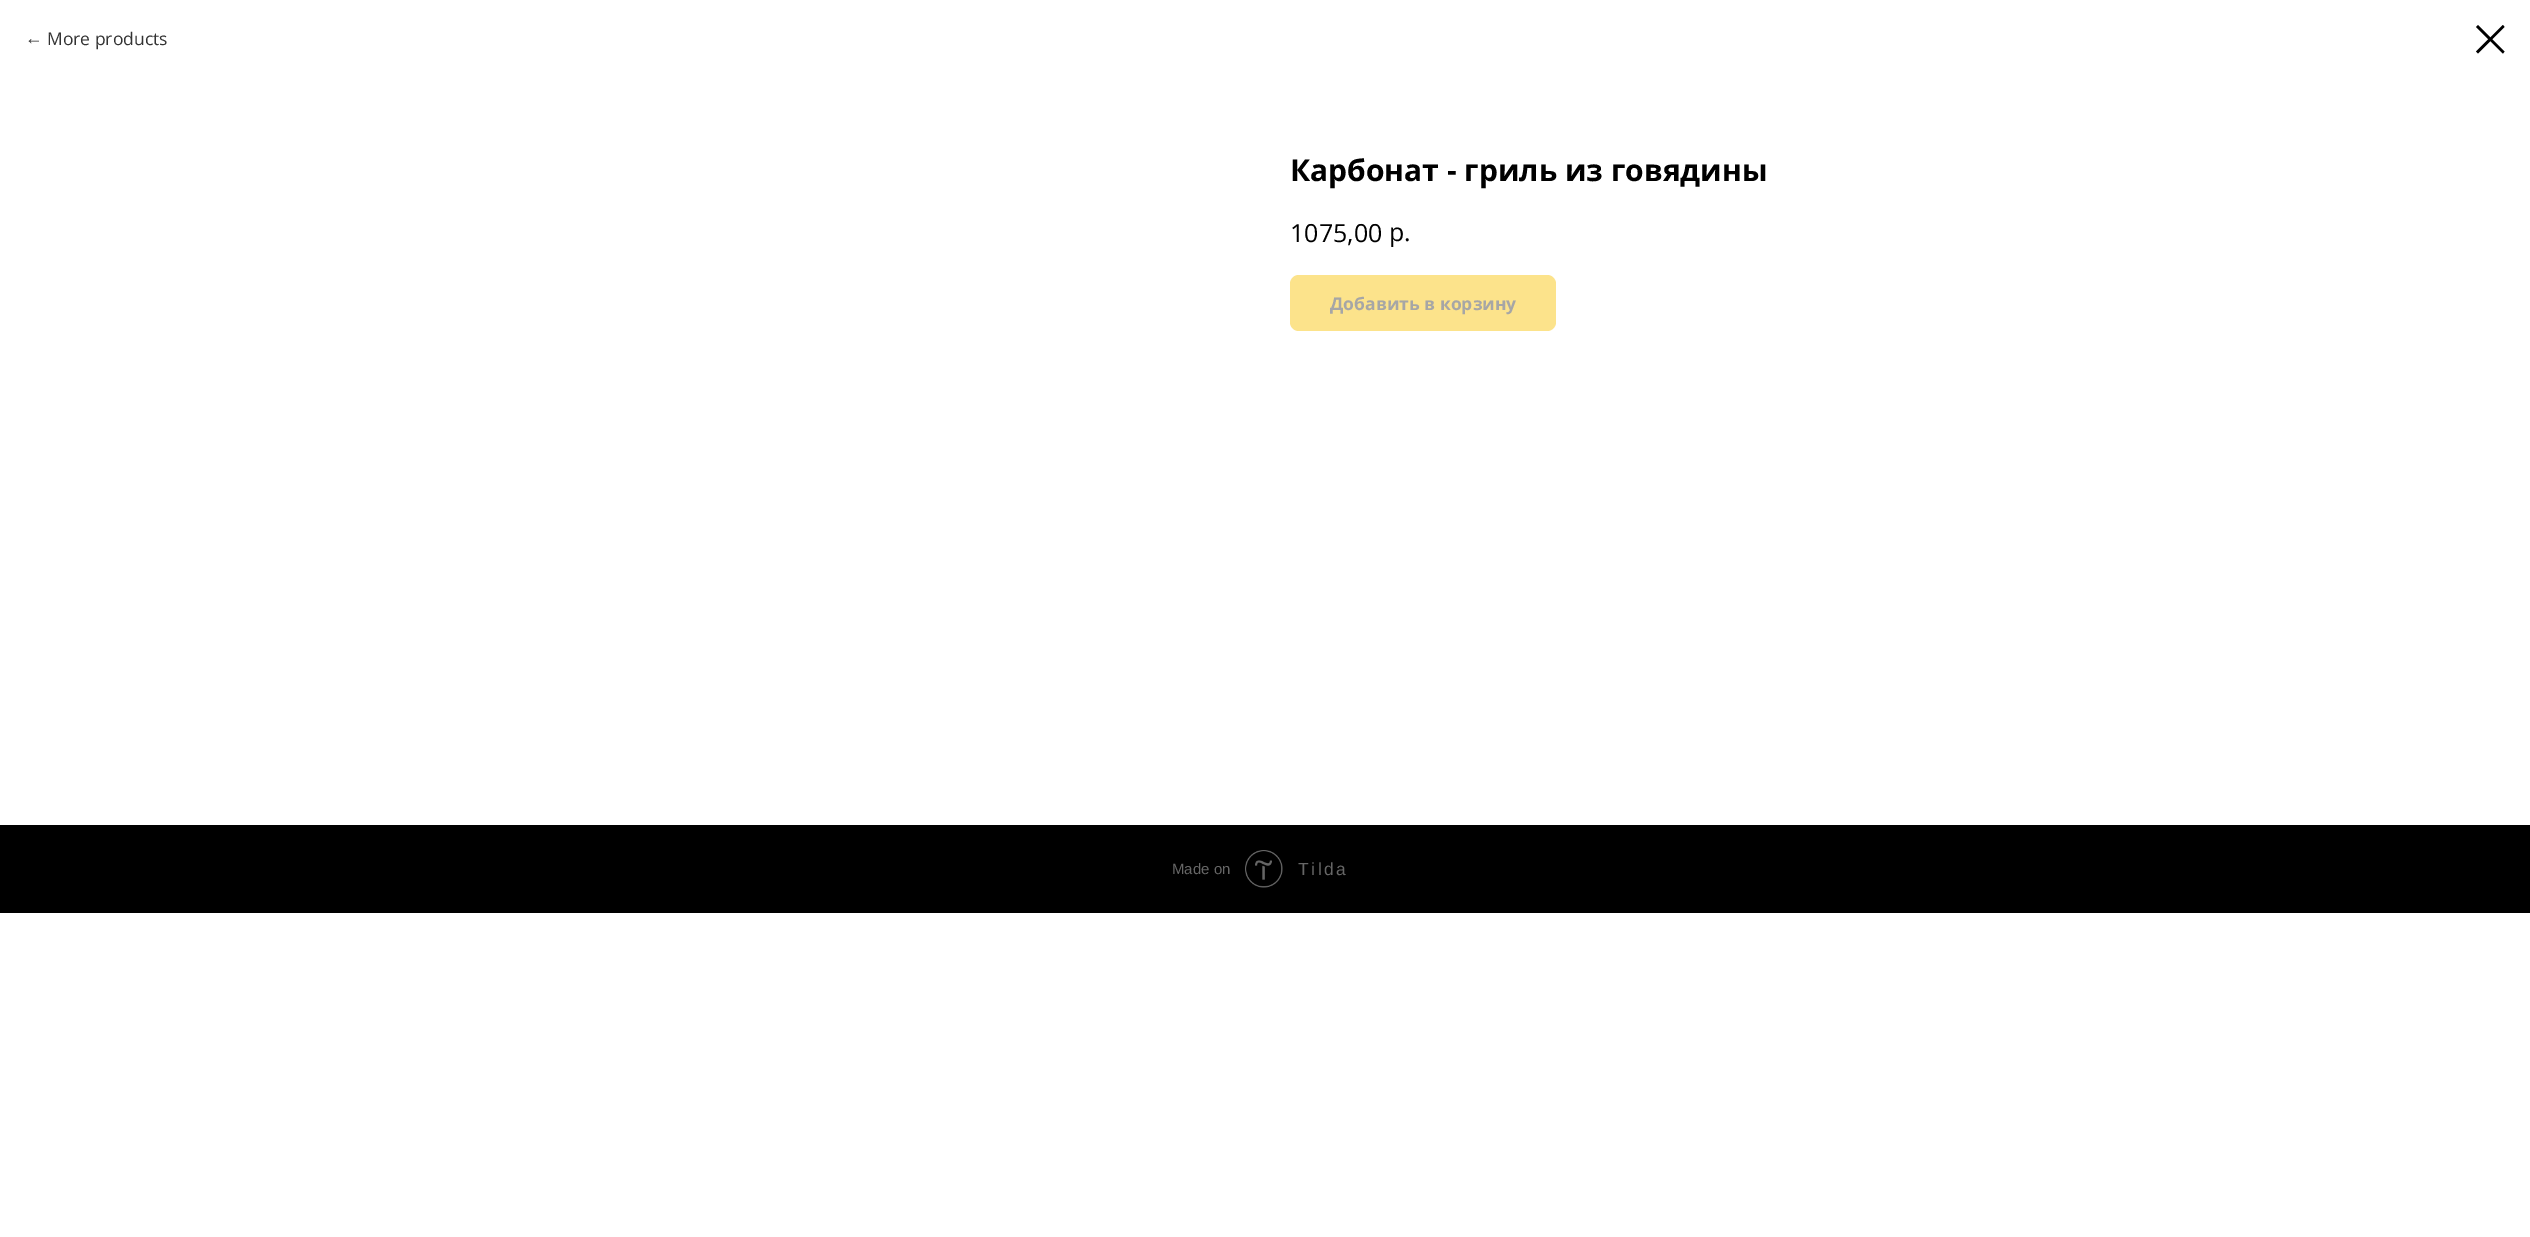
%!PS
<< /PageSize [2530 1237] >> setpagedevice
/rgb { dup -16 bitshift 255 div exch dup -8 bitshift 255 and 255 div exch 255 and 255 div setrgbcolor } def
/font { [ exch dup neg 0 0 3 -1 roll 0 0 ] selectfont } def
/text { moveto show } def
/roundrect { 5 dict begin { /r /h /w /y /x } { exch def } forall
  x r add y moveto x w add y 2 copy h add r arct x w add y h add x 1 index r arct
  x y h add x y r arct x y 2 copy exch w add exch r arct closepath end } def
/picture { 5 dict begin { /h /w /y /x /name } { exch def } forall
  gsave x y translate w h scale
  w h 8 [w 0 0 h 0 0] name (r) file false 3 colorimage grestore end } def
0 1237 translate 1 -1 scale
4 setmiterlimit
/s1 { /LiberationSans-Regular 17.5 font 16#333333 rgb } def
/s2 { /OpenSans-Regular 17.5 font 16#333333 rgb } def
/s3 { /OpenSans-Bold 30 font 16#000000 rgb } def
/s4 { /OpenSans-Regular 25 font 16#000000 rgb } def
/s5 { /OpenSans-Bold 17.5 font 16#A6A6A6 rgb } def
/s6 { /LiberationSans-Regular 15 font 16#666666 rgb } def
16#FFFFFF rgb
0 0 2530 1237 rectfill
s1
(←) 25 44 text
s2
(More products) 47 45 text
16#000000 rgb
2476 27 moveto 2478 25 lineto 2504.5 51.5 lineto 2503 53.5 lineto closepath eofill
2503 25 moveto 2504.5 27 lineto 2478 53.5 lineto 2476 51.5 lineto closepath eofill
s3
(Карбонат - гриль из говядины) 1290 181 text
s4
(1075,00) 1290 242 text
(р.) 1389 241 text
16#FCE38B rgb
1290 275 266 56 9 roundrect fill
s5
(Добавить в корзину) 1330 310 text
16#000000 rgb
0 825 2530 88 rectfill
s6
(Made on) 1172 874 text
(pic1.raw) 1245 850 38 38 picture
/LiberationSans-Regular 17.5 font
1298 875 moveto 2.5 0 (Tilda) ashow
showpage
